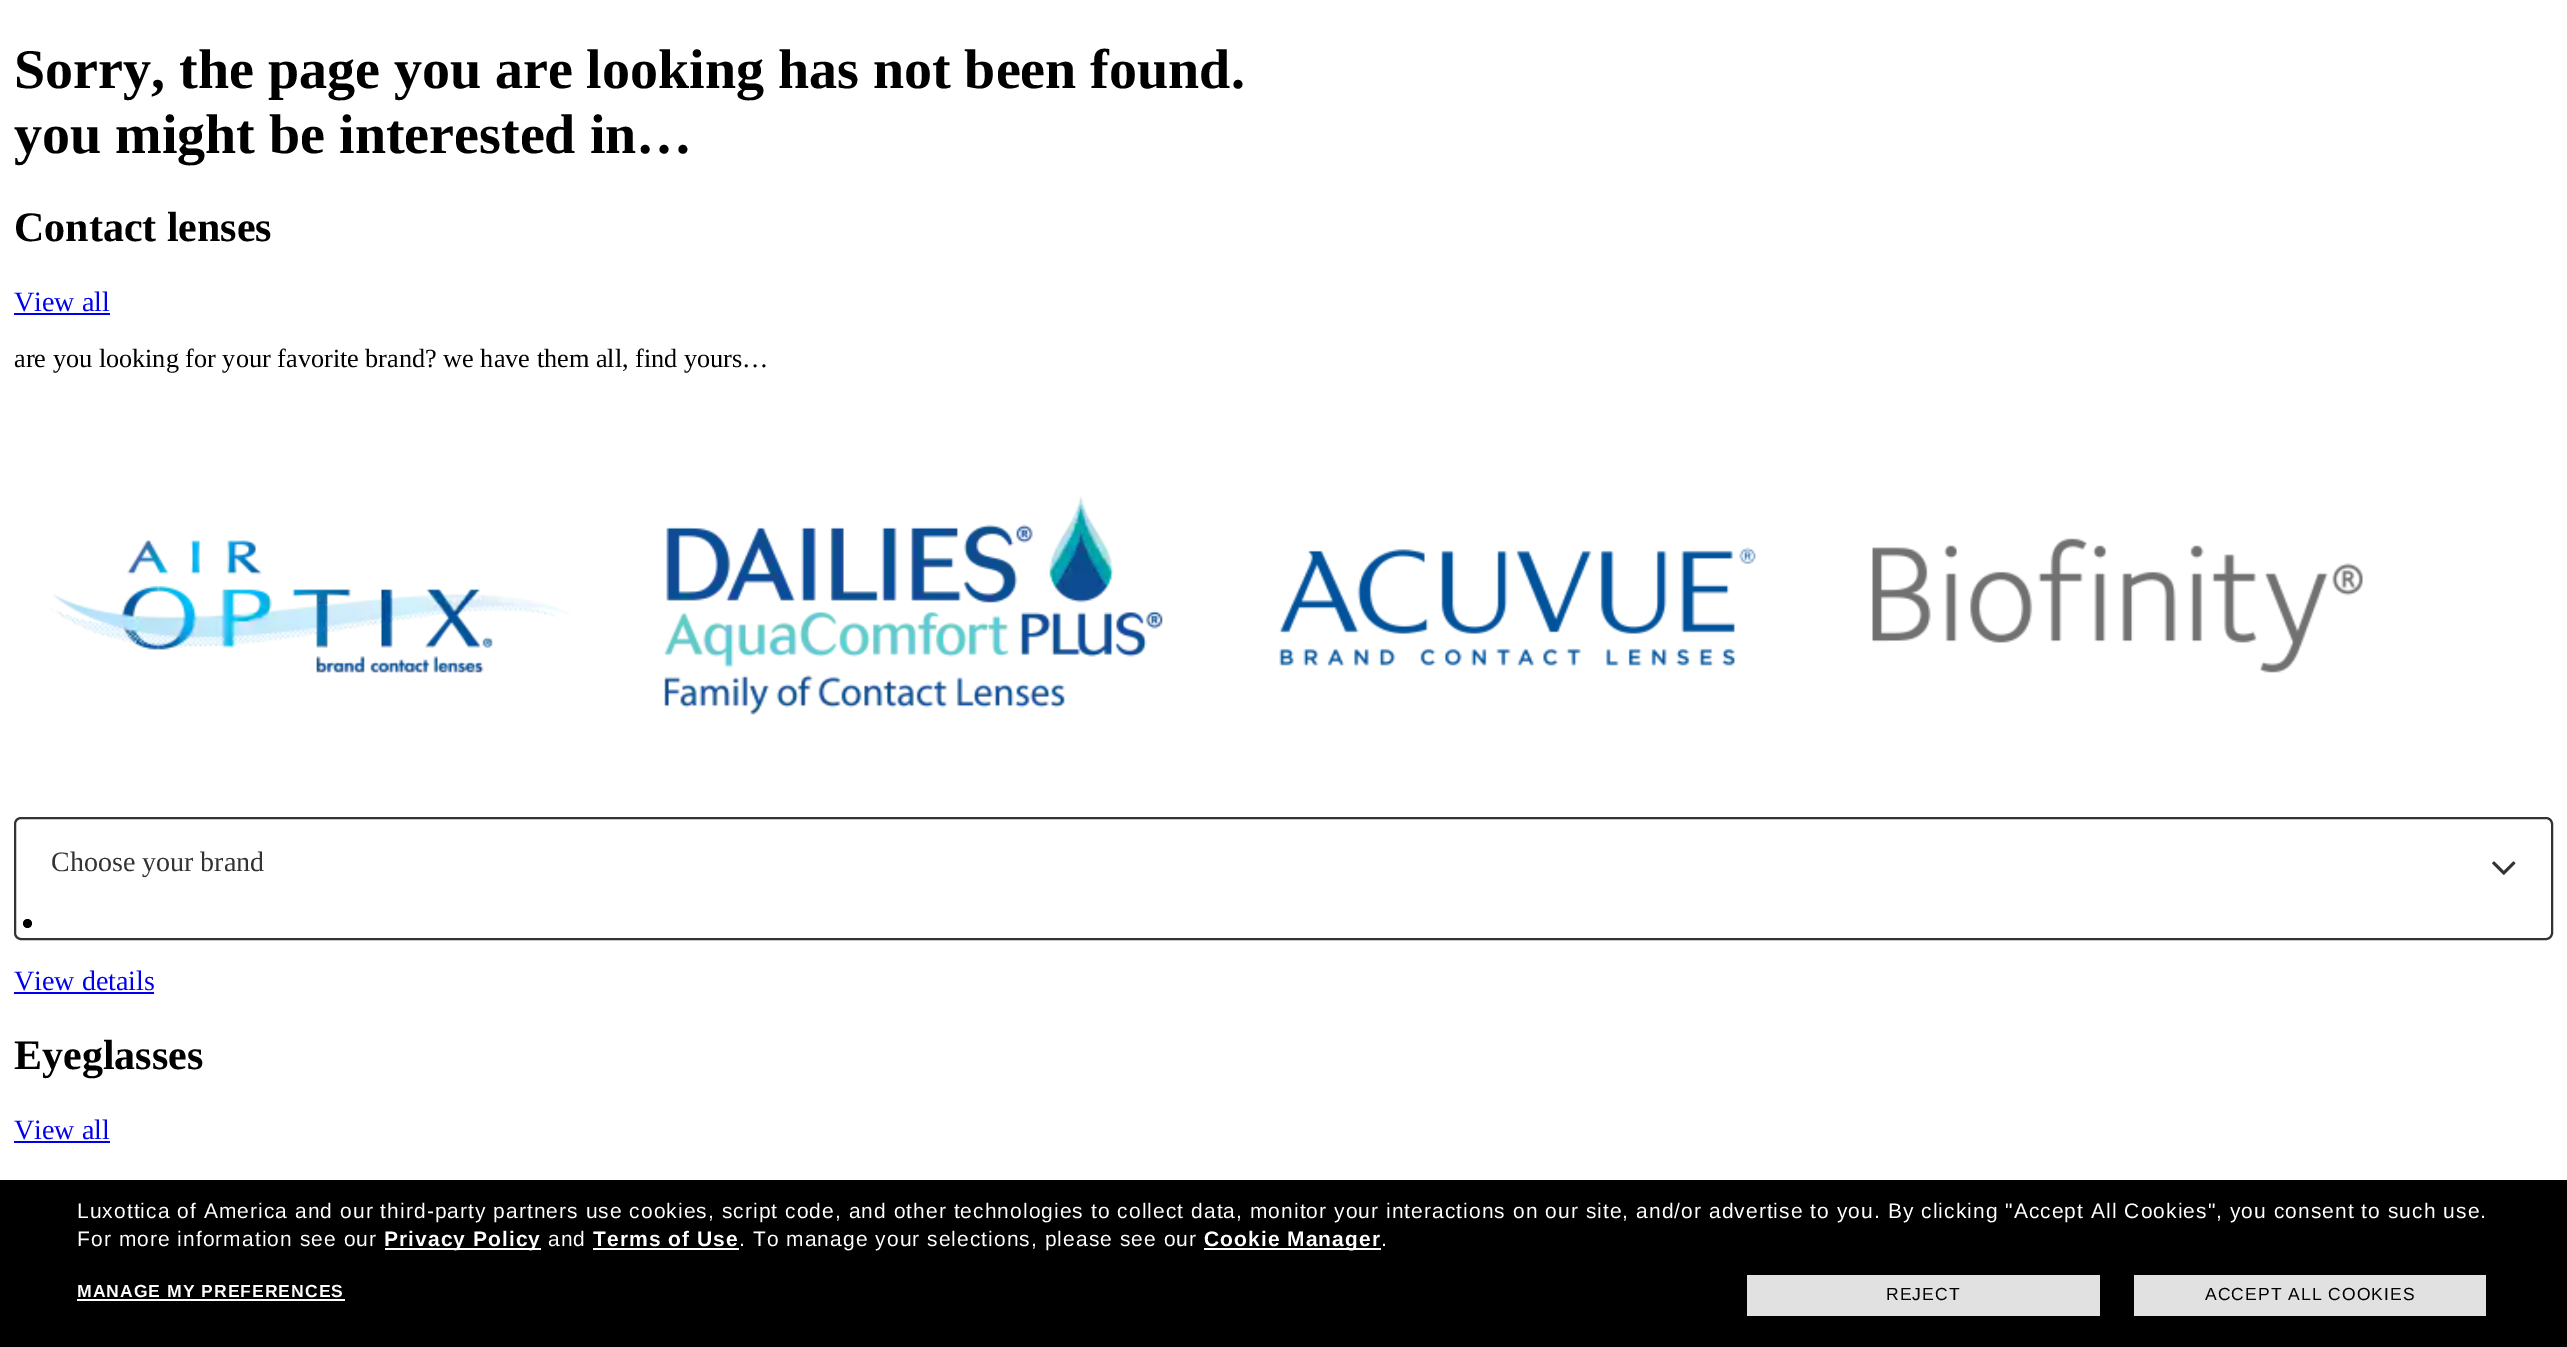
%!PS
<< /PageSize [2567 1347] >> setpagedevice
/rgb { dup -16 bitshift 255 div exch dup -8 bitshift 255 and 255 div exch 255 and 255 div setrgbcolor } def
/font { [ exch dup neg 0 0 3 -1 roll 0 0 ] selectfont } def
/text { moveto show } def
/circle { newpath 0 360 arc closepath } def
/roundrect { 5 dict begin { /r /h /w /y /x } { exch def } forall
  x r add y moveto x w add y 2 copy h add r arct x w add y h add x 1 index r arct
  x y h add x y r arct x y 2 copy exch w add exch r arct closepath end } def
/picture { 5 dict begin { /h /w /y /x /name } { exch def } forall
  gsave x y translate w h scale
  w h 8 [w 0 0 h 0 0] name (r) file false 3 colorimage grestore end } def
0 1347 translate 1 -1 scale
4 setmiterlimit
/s1 { /LiberationSerif-Bold 56 font 16#000000 rgb } def
/s2 { /LiberationSerif-Bold 42 font 16#000000 rgb } def
/s3 { /LiberationSerif-Regular 28 font 16#0000EE rgb } def
/s4 { /LiberationSerif-Regular 26.25 font 16#000000 rgb } def
/s5 { /LiberationSerif-Regular 28 font 16#333333 rgb } def
16#FFFFFF rgb
0 0 2567 1347 rectfill
s1
(Sorry, the page you are looking has not been found.) 14 88 text
(you might be interested in…) 14 153 text
s2
(Contact lenses) 14 241 text
s3
(View all) 14 311 text
14 313 96 2 rectfill
s4
(are you looking for your favorite brand? we have them all, find yours…) 14 367 text
(pic1.raw) 49 540 521 133 picture
(pic2.raw) 664 496 499 219 picture
(pic3.raw) 1279 547 477 119 picture
(pic4.raw) 1872 538 491 135 picture
16#333333 rgb
2 setlinewidth
15 818 2537 121 6 roundrect stroke
s5
(Choose your brand) 51 871 text
(pic5.raw) 2492 861 24 14 picture
16#000000 rgb
27.5 923.5 4.5 circle fill
s3
(View details) 14 990 text
14 992 140 2 rectfill
s2
(Eyeglasses) 14 1069 text
s3
(View all) 14 1139 text
14 1141 96 2 rectfill
16#000000 rgb
0 1180 2567 167 rectfill
/LiberationSans-Regular 21 font
16#FFFFFF rgb
77 1218 moveto 1.05 0 (Luxottica of America and our third-party partners use cookies, script code, and other technologies to collect data, monitor your interactions on our site, and/or advertise to you. By clicking "Accept All Cookies", you consent to such use.) ashow
77 1246 moveto 1.05 0 (For more information see our) ashow
385 1248 156 2 rectfill
/LiberationSans-Bold 21 font
384 1246 moveto 1.05 0 (Privacy Policy) ashow
/LiberationSans-Regular 21 font
548 1246 moveto 1.05 0 (and) ashow
/LiberationSans-Bold 21 font
593 1246 moveto 1.05 0 (Terms of Use) ashow
/LiberationSans-Regular 21 font
739 1246 moveto 1.05 0 (. To manage your selections, please see our) ashow
593 1248 146 2 rectfill
1204 1248 177 2 rectfill
/LiberationSans-Bold 21 font
1204 1246 moveto 1.05 0 (Cookie Manager) ashow
/LiberationSans-Regular 21 font
1381 1246 moveto 1.05 0 (.) ashow
/LiberationSans-Bold 17.5 font
77 1297 moveto 1.05 0 (MANAGE MY PREFERENCES) ashow
77 1299 268 2 rectfill
16#E1E1E1 rgb
1747 1275 353 41 rectfill
/LiberationSans-Regular 17.5 font
16#000000 rgb
1886 1300 moveto 1.05 0 (REJECT) ashow
16#E1E1E1 rgb
2134 1275 352 41 rectfill
16#000000 rgb
2205 1300 moveto 1.05 0 (ACCEPT ALL COOKIES) ashow
showpage
